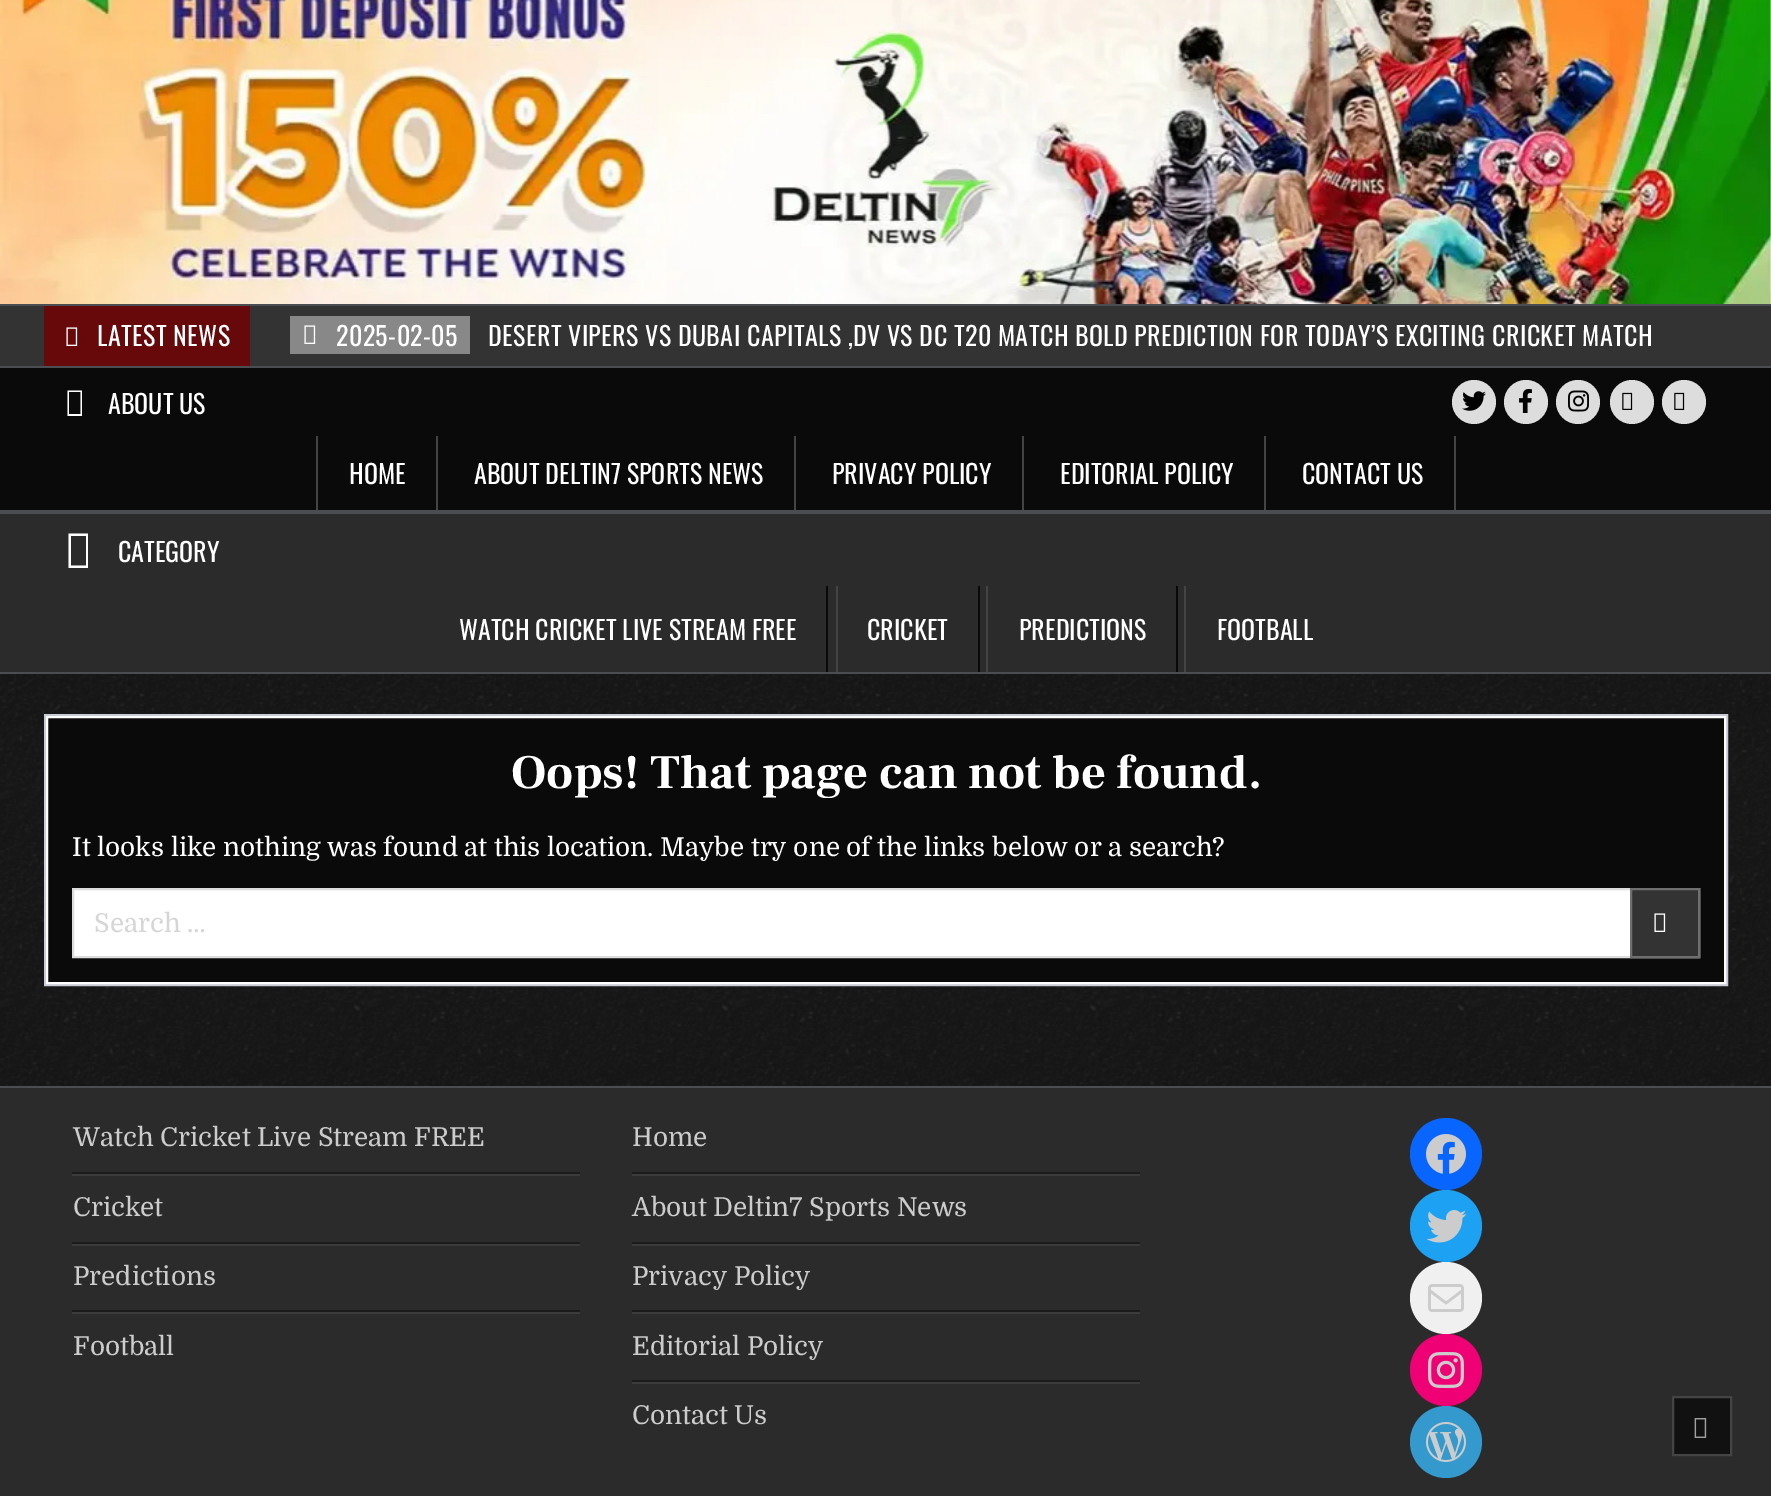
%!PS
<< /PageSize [1771 1496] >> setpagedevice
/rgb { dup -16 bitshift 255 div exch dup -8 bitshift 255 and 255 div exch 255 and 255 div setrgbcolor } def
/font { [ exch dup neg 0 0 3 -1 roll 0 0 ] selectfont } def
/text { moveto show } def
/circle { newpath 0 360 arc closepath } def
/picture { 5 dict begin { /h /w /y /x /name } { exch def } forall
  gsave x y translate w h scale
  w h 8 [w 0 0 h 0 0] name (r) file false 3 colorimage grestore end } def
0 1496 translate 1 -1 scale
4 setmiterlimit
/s1 { /Oswald-Regular 26 font 16#FFFFFF rgb } def
/s2 { /FrankRuhlLibre-Bold 48 font 16#FFFFFF rgb } def
/s3 { /Domine-Regular 26 font 16#FFFFFF rgb } def
/s4 { /Domine-Regular 26 font 16#D6D6D6 rgb } def
/s5 { /Domine-Regular 26 font 16#CCCCCC rgb } def
16#161616 rgb
0 0 1771 1496 rectfill
(pic1.raw) 0 674 1771 412 picture
(pic2.raw) 0 0 1771 304 picture
16#333333 rgb
0 306 1771 60 rectfill
16#4A4E53 rgb
0 304 1771 2 rectfill
16#67080B rgb
44 306 206 60 rectfill
(pic3.raw) 66 327 12 19 picture
/Oswald-Regular 26 font
16#FFFFFF rgb
97 346 moveto 0.4 0 (LATEST NEWS) ashow
16#888888 rgb
290 316 180 38 rectfill
(pic4.raw) 304 325 12 19 picture
16#FFFFFF rgb
336 346 moveto 0.4 0 (2025-02-05) ashow
488 346 moveto 0.4 0 (DESERT VIPERS VS DUBAI CAPITALS ,DV VS DC T20 MATCH BOLD PREDICTION FOR TODAY’S EXCITING CRICKET MATCH) ashow
16#0A0A0A rgb
0 368 1771 142 rectfill
16#4A4E53 rgb
0 366 1771 2 rectfill
0 510 1771 4 rectfill
16#FFFFFF rgb
67.5 416 moveto 67.5 390.5 lineto 82 390.5 lineto 82 416 lineto closepath 69 414 moveto 80.5 414 lineto 80.5 392 lineto 69 392 lineto closepath fill
(ABOUT US) 108 414 text
16#DDDDDD rgb
1474 402 22 circle fill
(pic5.raw) 1462 391 24 20 picture
1526 402 22 circle fill
(pic6.raw) 1519 389 13 24 picture
1578 402 22 circle fill
(pic7.raw) 1568 390 21 22 picture
1632 402 22 circle fill
(pic8.raw) 1622 392 11 18 picture
1684 402 22 circle fill
(pic8.raw) 1674 392 11 18 picture
16#444444 rgb
436 436 2 74 rectfill
316 436 2 74 rectfill
s1
(HOME) 349 484 text
16#444444 rgb
794 436 2 74 rectfill
s1
(ABOUT DELTIN7 SPORTS NEWS) 474 484 text
16#444444 rgb
1022 436 2 74 rectfill
s1
(PRIVACY POLICY) 832 484 text
16#444444 rgb
1264 436 2 74 rectfill
s1
(EDITORIAL POLICY) 1060 484 text
16#444444 rgb
1454 436 2 74 rectfill
s1
(CONTACT US) 1302 484 text
16#2B2B2B rgb
0 514 1771 158 rectfill
16#4A4E53 rgb
0 672 1771 2 rectfill
16#FFFFFF rgb
68.5 568 moveto 68.5 533.5 lineto 88 533.5 lineto 88 568 lineto closepath 71 565.5 moveto 86 565.5 lineto 86 536 lineto 71 536 lineto closepath fill
(CATEGORY) 118 562 text
16#090909 rgb
826 586 2 86 rectfill
s1
(WATCH CRICKET LIVE STREAM FREE) 459 640 text
16#090909 rgb
978 586 2 86 rectfill
16#444444 rgb
836 586 2 86 rectfill
s1
(CRICKET) 867 640 text
16#090909 rgb
1176 586 2 86 rectfill
16#444444 rgb
986 586 2 86 rectfill
s1
(PREDICTIONS) 1019 640 text
16#444444 rgb
1184 586 2 86 rectfill
s1
(FOOTBALL) 1217 640 text
16#0A0A0A rgb
48 718 1676 264 rectfill
16#C8CBD6 rgb
2 setlinewidth
45 715 1682 270 rectstroke
16#FFFFFF rgb
47 717 1678 266 rectstroke
gsave
72 750 1628 48 rectclip
s2
(Oops! That page can not be found.) 511 788 text
grestore
s3
(It looks like nothing was found at this location. Maybe try one of the links below or a search?) 72 856 text
74 890 1556 66 rectfill
16#DDDDDD rgb
73 889 1626 68 rectstroke
s4
(Search …) 94 932 text
16#333333 rgb
1631 889 moveto 1699 889 lineto 1699 957 lineto 1631 957 lineto closepath gsave fill grestore
16#6F6F6F rgb
stroke
(pic9.raw) 1654 913 12 19 picture
16#2B2B2B rgb
0 1088 1771 408 rectfill
16#4A4E53 rgb
0 1086 1771 2 rectfill
16#1B1B1B rgb
72 1172 508 2 rectfill
s5
(Watch Cricket Live Stream FREE) 73 1146 text
16#3B3B3B rgb
72 1174 508 2 rectfill
16#1B1B1B rgb
72 1242 508 2 rectfill
s5
(Cricket) 73 1216 text
16#3B3B3B rgb
72 1244 508 2 rectfill
16#1B1B1B rgb
72 1310 508 2 rectfill
s5
(Predictions) 73 1285 text
16#3B3B3B rgb
72 1312 508 2 rectfill
s5
(Football) 73 1355 text
16#1B1B1B rgb
632 1172 508 2 rectfill
s5
(Home) 632 1146 text
16#3B3B3B rgb
632 1174 508 2 rectfill
16#1B1B1B rgb
632 1242 508 2 rectfill
s5
(About Deltin7 Sports News) 632 1216 text
16#3B3B3B rgb
632 1244 508 2 rectfill
16#1B1B1B rgb
632 1310 508 2 rectfill
s5
(Privacy Policy) 632 1285 text
16#3B3B3B rgb
632 1312 508 2 rectfill
16#1B1B1B rgb
632 1380 508 2 rectfill
s5
(Editorial Policy) 632 1355 text
16#3B3B3B rgb
632 1382 508 2 rectfill
s5
(Contact Us) 632 1424 text
16#0866FF rgb
1446 1154 36 circle fill
(pic10.raw) 1426 1134 40 40 picture
16#1DA1F2 rgb
1446 1226 36 circle fill
(pic11.raw) 1426 1210 41 33 picture
16#F0F0F0 rgb
1446 1298 36 circle fill
(pic12.raw) 1428 1284 36 28 picture
16#F00075 rgb
1446 1370 36 circle fill
(pic13.raw) 1428 1352 36 36 picture
16#3499CD rgb
1446 1442 36 circle fill
(pic14.raw) 1426 1422 40 40 picture
16#111111 rgb
1673 1397 moveto 1731 1397 lineto 1731 1455 lineto 1673 1455 lineto closepath gsave fill grestore
16#444444 rgb
stroke
(pic15.raw) 1694 1418 13 20 picture
showpage
